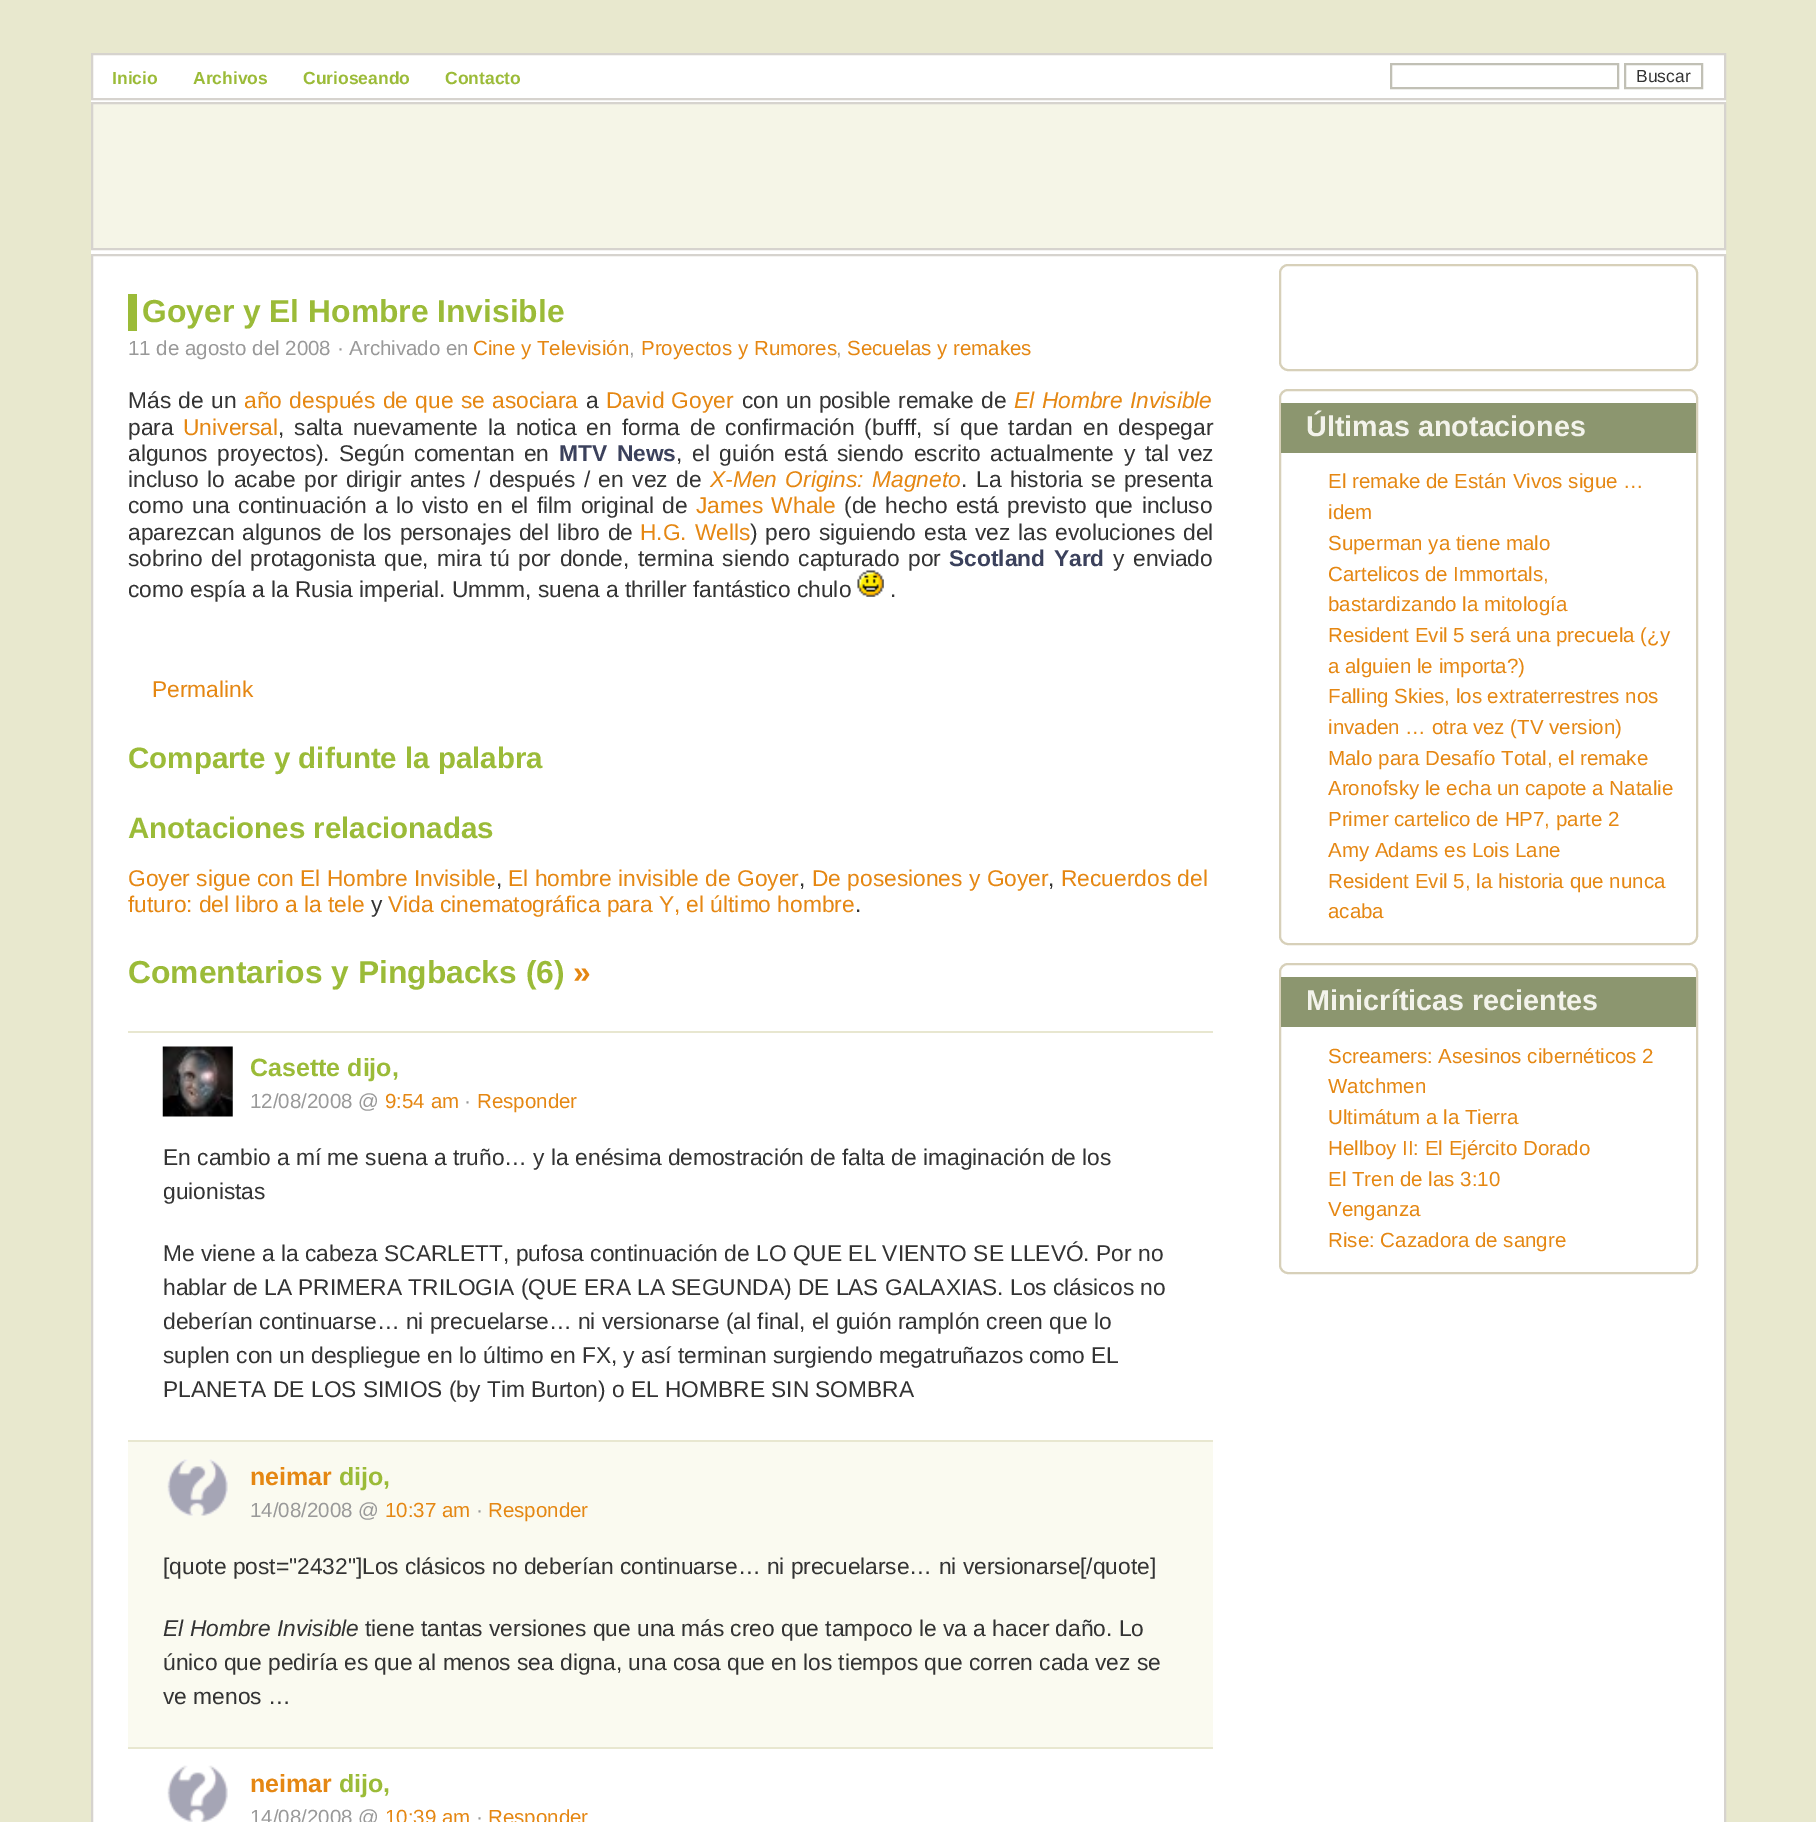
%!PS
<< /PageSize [1816 1822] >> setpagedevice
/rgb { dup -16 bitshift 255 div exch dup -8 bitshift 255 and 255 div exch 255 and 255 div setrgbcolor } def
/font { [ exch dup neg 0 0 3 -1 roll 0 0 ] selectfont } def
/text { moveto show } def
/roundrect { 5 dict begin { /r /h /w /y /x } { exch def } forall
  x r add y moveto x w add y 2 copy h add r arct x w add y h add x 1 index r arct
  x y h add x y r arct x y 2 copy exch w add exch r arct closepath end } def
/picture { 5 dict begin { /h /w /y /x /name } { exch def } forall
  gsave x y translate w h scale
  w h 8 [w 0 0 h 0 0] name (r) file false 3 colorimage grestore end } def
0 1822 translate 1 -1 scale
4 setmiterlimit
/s1 { /LiberationSans-Bold 17.5 font 16#9BBB38 rgb } def
/s2 { /LiberationSans-Regular 17.5 font 16#333333 rgb } def
/s3 { /LiberationSans-Bold 31.8 font 16#9BBB38 rgb } def
/s4 { /LiberationSans-Regular 20.5 font 16#999999 rgb } def
/s5 { /LiberationSans-Regular 20.5 font 16#E58712 rgb } def
/s6 { /LiberationSans-Regular 22.75 font 16#333333 rgb } def
/s7 { /LiberationSans-Regular 22.75 font 16#E58712 rgb } def
/s8 { /LiberationSans-Bold 29.5 font 16#9BBB38 rgb } def
/s9 { /LiberationSans-Bold 31.8 font 16#E58712 rgb } def
/s10 { /LiberationSans-Bold 25 font 16#9BBB38 rgb } def
/s11 { /LiberationSans-Bold 25 font 16#E58712 rgb } def
/s12 { /LiberationSans-Italic 22.75 font 16#333333 rgb } def
/s13 { /LiberationSans-Bold 28.75 font 16#F3F3EB rgb } def
16#E8E8CE rgb
0 0 1816 1822 rectfill
16#FFFFFF rgb
91 55 1635 1767 rectfill
16#D6D3CE rgb
2 setlinewidth
92 54 1633 45 rectstroke
s1
(Inicio) 112 84 text
(Archivos) 193 84 text
(Curioseando) 303 84 text
(Contacto) 445 84 text
16#C1C0B5 rgb
1391 64 227 24 rectstroke
1625 64 77 24 rectstroke
s2
(Buscar) 1636 82 text
16#F5F5E7 rgb
92 103 moveto 1725 103 lineto 1725 249 lineto 92 249 lineto closepath gsave fill grestore
16#D6D3CE rgb
stroke
92 255 1633 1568 rectstroke
16#9BBB38 rgb
128 294 9 37 rectfill
s3
(Goyer y El Hombre Invisible) 142 322 text
s4
(11 de agosto del 2008 · Archivado en) 128 355 text
s5
(Cine y Televisión) 473 355 text
s4
(,) 629 355 text
s5
(Proyectos y Rumores) 641 355 text
s4
(,) 836 355 text
s5
(Secuelas y remakes) 847 355 text
/LiberationSans-Regular 22.75 font
16#333333 rgb
128 408 moveto 1 0 32 (Más de un) widthshow
16#E58712 rgb
244 408 moveto 1 0 32 (año después de que se asociara) widthshow
s6
(a) 586 408 text
16#E58712 rgb
606 408 moveto 1 0 32 (David Goyer) widthshow
16#333333 rgb
742 408 moveto 1 0 32 (con un posible remake de) widthshow
/LiberationSans-Italic 22.75 font
16#E58712 rgb
1014 408 moveto 1 0 32 (El Hombre Invisible) widthshow
s6
(para) 128 435 text
s7
(Universal) 183 435 text
16#333333 rgb
278 435 moveto 3.75 0 32 (, salta nuevamente la notica en forma de confirmación \(bufff, sí que tardan en despegar) widthshow
128 461 moveto 3.25 0 32 (algunos proyectos\).) widthshow
339 461 moveto 3.25 0 32 (Según comentan en) widthshow
/LiberationSans-Bold 22.75 font
16#3B415C rgb
559 461 moveto 3.25 0 32 (MTV News) widthshow
/LiberationSans-Regular 22.75 font
16#333333 rgb
676 461 moveto 3.25 0 32 (, el guión está siendo escrito actualmente y tal vez) widthshow
128 487 moveto 2.25 0 32 (incluso lo acabe por dirigir antes / después / en vez de) widthshow
/LiberationSans-Italic 22.75 font
16#E58712 rgb
710 487 moveto 2 0 32 (X-Men Origins: Magneto) widthshow
s6
(.) 961 487 text
976 487 moveto 2 0 32 (La historia se presenta) widthshow
128 513 moveto 2.1 0 32 (como una continuación a lo visto en el film original de) widthshow
16#E58712 rgb
696 513 moveto 2.1 0 32 (James Whale) widthshow
16#333333 rgb
844 513 moveto 2.1 0 32 (\(de hecho está previsto que incluso) widthshow
128 540 moveto 1.5 0 32 (aparezcan algunos de los personajes del libro de) widthshow
16#E58712 rgb
640 540 moveto 1.5 0 32 (H.G. Wells) widthshow
16#333333 rgb
750 540 moveto 1.5 0 32 (\) pero siguiendo esta vez las evoluciones del) widthshow
128 566 moveto 2.4 0 32 (sobrino del protagonista que, mira tú por donde, termina siendo capturado por) widthshow
/LiberationSans-Bold 22.75 font
16#3B415C rgb
949 566 moveto 2.4 0 32 (Scotland Yard) widthshow
/LiberationSans-Regular 22.75 font
16#333333 rgb
1113 566 moveto 2.4 0 32 (y enviado) widthshow
(como espía a la Rusia imperial. Ummm, suena a thriller fantástico chulo) 128 597 text
(pic1.raw) 857 570 27 27 picture
(.) 890 597 text
s7
(Permalink) 152 697 text
s8
(Comparte y difunte la palabra) 128 768 text
(Anotaciones relacionadas) 128 838 text
s7
(Goyer sigue con El Hombre Invisible) 128 886 text
s6
(,) 496 886 text
s7
(El hombre invisible de Goyer) 508 886 text
s6
(,) 799 886 text
s7
(De posesiones y Goyer) 812 886 text
s6
(,) 1048 886 text
s7
(Recuerdos del) 1061 886 text
(futuro: del libro a la tele) 128 912 text
s6
(y) 371 912 text
s7
(Vida cinematográfica para Y, el último hombre) 388 912 text
s6
(.) 855 912 text
s3
(Comentarios y Pingbacks \(6\)) 128 983 text
s9
(») 573 983 text
16#E8E7D0 rgb
128 1031 1085 2 rectfill
(pic2.raw) 162 1046 71 71 picture
s10
(Casette dijo,) 250 1076 text
s4
(12/08/2008 @) 250 1108 text
s5
(9:54 am) 385 1108 text
s4
(·) 464 1108 text
s5
(Responder) 477 1108 text
s6
(En cambio a mí me suena a truño… y la enésima demostración de falta de imaginación de los) 163 1165 text
(guionistas) 163 1199 text
(Me viene a la cabeza SCARLETT, pufosa continuación de LO QUE EL VIENTO SE LLEVÓ. Por no) 163 1261 text
(hablar de LA PRIMERA TRILOGIA \(QUE ERA LA SEGUNDA\) DE LAS GALAXIAS. Los clásicos no) 163 1295 text
(deberían continuarse… ni precuelarse… ni versionarse \(al final, el guión ramplón creen que lo) 163 1329 text
(suplen con un despliegue en lo último en FX, y así terminan surgiendo megatruñazos como EL) 163 1363 text
(PLANETA DE LOS SIMIOS \(by Tim Burton\) o EL HOMBRE SIN SOMBRA) 163 1397 text
16#FAFAF0 rgb
128 1442 1085 305 rectfill
16#E8E7D0 rgb
128 1440 1085 2 rectfill
(pic3.raw) 167 1459 61 57 picture
s11
(neimar) 250 1485 text
s10
(dijo,) 339 1485 text
s4
(14/08/2008 @) 250 1517 text
s5
(10:37 am) 385 1517 text
s4
(·) 476 1517 text
s5
(Responder) 488 1517 text
s6
([quote post="2432"]Los clásicos no deberían continuarse… ni precuelarse… ni versionarse[/quote]) 163 1574 text
s12
(El Hombre Invisible) 163 1636 text
s6
(tiene tantas versiones que una más creo que tampoco le va a hacer daño. Lo) 365 1636 text
(único que pediría es que al menos sea digna, una cosa que en los tiempos que corren cada vez se) 163 1670 text
(ve menos …) 163 1704 text
16#E8E7D0 rgb
128 1747 1085 2 rectfill
(pic4.raw) 167 1765 61 57 picture
s11
(neimar) 250 1792 text
s10
(dijo,) 339 1792 text
s4
(14/08/2008 @) 250 1824 text
s5
(10:39 am) 385 1824 text
s4
(·) 476 1824 text
s5
(Responder) 488 1824 text
16#D7D0B9 rgb
1280 265 417 105 8 roundrect stroke
1280 390 417 554 8 roundrect stroke
16#8C966F rgb
1281 403 415 50 rectfill
s13
(Últimas anotaciones) 1306 436 text
s5
(El remake de Están Vivos sigue …) 1328 488 text
(idem) 1328 519 text
(Superman ya tiene malo) 1328 550 text
(Cartelicos de Immortals,) 1328 581 text
(bastardizando la mitología) 1328 611 text
(Resident Evil 5 será una precuela \(¿y) 1328 642 text
(a alguien le importa?\)) 1328 673 text
(Falling Skies, los extraterrestres nos) 1328 703 text
(invaden … otra vez \(TV version\)) 1328 734 text
(Malo para Desafío Total, el remake) 1328 765 text
(Aronofsky le echa un capote a Natalie) 1328 795 text
(Primer cartelico de HP7, parte 2) 1328 826 text
(Amy Adams es Lois Lane) 1328 857 text
(Resident Evil 5, la historia que nunca) 1328 888 text
(acaba) 1328 918 text
16#D7D0B9 rgb
1280 964 417 309 8 roundrect stroke
16#8C966F rgb
1281 977 415 50 rectfill
s13
(Minicríticas recientes) 1306 1010 text
s5
(Screamers: Asesinos cibernéticos 2) 1328 1063 text
(Watchmen) 1328 1093 text
(Ultimátum a la Tierra) 1328 1124 text
(Hellboy II: El Ejército Dorado) 1328 1155 text
(El Tren de las 3:10) 1328 1186 text
(Venganza) 1328 1216 text
(Rise: Cazadora de sangre) 1328 1247 text
showpage
